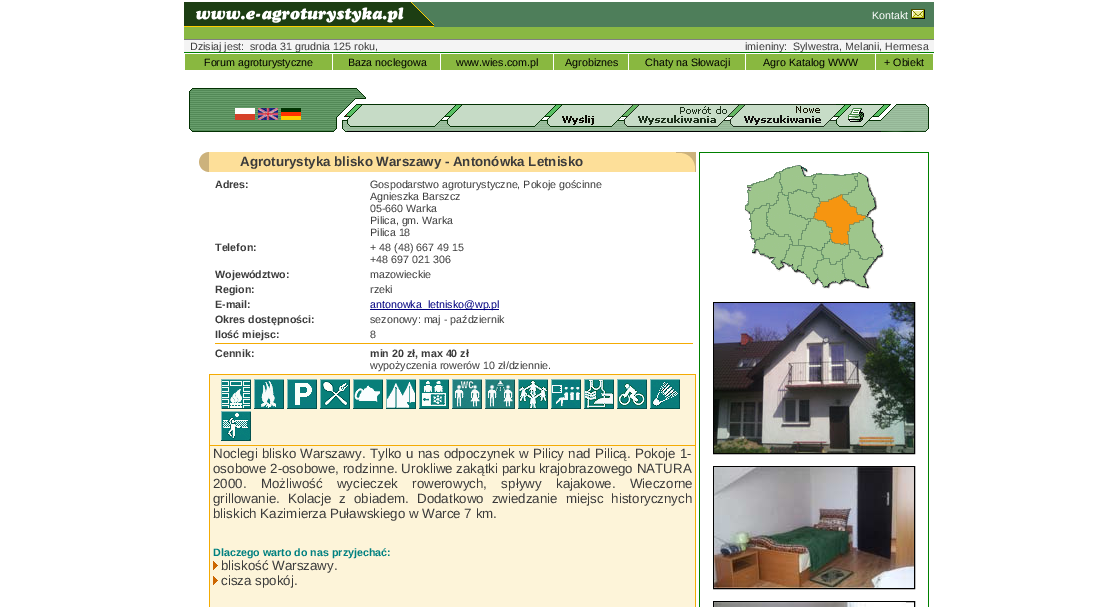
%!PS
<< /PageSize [1118 607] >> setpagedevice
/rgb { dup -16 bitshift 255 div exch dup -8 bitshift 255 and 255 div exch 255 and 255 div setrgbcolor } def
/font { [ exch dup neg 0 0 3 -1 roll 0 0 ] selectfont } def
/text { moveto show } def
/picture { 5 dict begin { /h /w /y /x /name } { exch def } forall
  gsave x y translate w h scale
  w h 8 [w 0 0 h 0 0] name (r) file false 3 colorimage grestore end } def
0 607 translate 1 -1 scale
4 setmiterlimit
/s1 { /LiberationSans-Regular 10.7 font 16#FFFFFF rgb } def
/s2 { /LiberationSans-Regular 10.7 font 16#3B3B3B rgb } def
/s3 { /LiberationSans-Regular 10.7 font 16#000000 rgb } def
/s4 { /LiberationSans-Bold 13.35 font 16#3B3B3B rgb } def
/s5 { /LiberationSans-Bold 10.7 font 16#3B3B3B rgb } def
/s6 { /LiberationSans-Regular 10.7 font 16#000080 rgb } def
/s7 { /LiberationSans-Regular 13.35 font 16#3B3B3B rgb } def
/s8 { /LiberationSans-Bold 10.7 font 16#008080 rgb } def
16#FFFFFF rgb
0 0 1118 607 rectfill
16#4E7E5A rgb
434 2 500 25 rectfill
(pic1.raw) 184 2 250 25 picture
s1
(Kontakt) 872 19 text
(pic2.raw) 911 9 14 10 picture
16#89B843 rgb
184 27 750 12 rectfill
16#808080 rgb
184 39 750 1 rectfill
16#F4F4F4 rgb
184 40 750 12 rectfill
16#008000 rgb
184 52 750 1 rectfill
s2
(Dzisiaj jest:  sroda 31 grudnia 125 roku,) 190 50 text
(imieniny:) 745 50 text
(Sylwestra, Melanii, Hermesa) 793 50 text
16#89B840 rgb
185 54 147 16 rectfill
s3
(Forum agroturystyczne) 204 66 text
16#89B840 rgb
333 54 107 16 rectfill
s3
(Baza noclegowa) 348 66 text
16#89B840 rgb
441 54 112 16 rectfill
s3
(www.wies.com.pl) 456 66 text
16#89B840 rgb
554 54 74 16 rectfill
s3
(Agrobiznes) 565 66 text
16#89B840 rgb
629 54 116 16 rectfill
s3
(Chaty na Słowacji) 645 66 text
16#89B840 rgb
746 54 129 16 rectfill
s3
(Agro Katalog WWW) 763 66 text
16#89B840 rgb
876 54 57 16 rectfill
s3
(+ Obiekt) 884 66 text
(pic3.raw) 189 88 177 16 picture
(pic4.raw) 189 104 158 23 picture
(pic5.raw) 235 108 20 12 picture
(pic6.raw) 258 108 20 12 picture
(pic7.raw) 281 108 20 12 picture
(pic8.raw) 347 104 100 23 picture
(pic9.raw) 447 104 100 23 picture
(pic10.raw) 547 104 77 23 picture
(pic11.raw) 624 104 106 23 picture
(pic12.raw) 730 104 106 23 picture
(pic13.raw) 836 104 45 23 picture
(pic14.raw) 189 127 158 5 picture
(pic15.raw) 347 127 534 5 picture
(pic16.raw) 881 104 48 28 picture
(pic17.raw) 199 152 10 20 picture
16#FDDF99 rgb
209 152 467 20 rectfill
s4
(Agroturystyka blisko Warszawy - Antonówka Letnisko) 240 166 text
(pic18.raw) 676 152 20 20 picture
s5
(Adres:) 215 188 text
s2
(Gospodarstwo agroturystyczne, Pokoje gościnne) 370 188 text
(Agnieszka Barszcz) 370 200 text
(05-660 Warka) 370 212 text
(Pilica, gm. Warka) 370 224 text
(Pilica 18) 370 236 text
s5
(Telefon:) 215 251 text
s2
(+ 48 \(48\) 667 49 15) 370 251 text
(+48 697 021 306) 370 263 text
s5
(Województwo:) 215 278 text
s2
(mazowieckie) 370 278 text
s5
(Region:) 215 293 text
s2
(rzeki) 370 293 text
s5
(E-mail:) 215 308 text
16#000080 rgb
370 309 129 1 rectfill
s6
(antonowka_letnisko@wp.pl) 370 308 text
s5
(Okres dostępności:) 215 323 text
s2
(sezonowy: maj - październik) 370 323 text
s5
(Ilość miejsc:) 215 338 text
s2
(8) 370 338 text
16#F4AB03 rgb
215 343 478 1 rectfill
s5
(Cennik:) 215 357 text
(min 20 zł, max 40 zł) 370 357 text
s2
(wypożyczenia rowerów 10 zł/dziennie.) 370 369 text
16#F4AB03 rgb
209 374 487 233 rectfill
16#FDF4D9 rgb
210 375 485 70 rectfill
(pic19.raw) 221 379 30 30 picture
(pic20.raw) 254 379 30 30 picture
(pic21.raw) 287 379 30 30 picture
(pic22.raw) 320 379 30 30 picture
(pic23.raw) 353 379 30 30 picture
(pic24.raw) 386 379 30 30 picture
(pic25.raw) 419 379 30 30 picture
(pic26.raw) 452 379 30 30 picture
(pic27.raw) 485 379 30 30 picture
(pic28.raw) 518 379 30 30 picture
(pic29.raw) 551 379 30 30 picture
(pic30.raw) 584 379 30 30 picture
(pic31.raw) 617 379 30 30 picture
(pic32.raw) 650 379 30 30 picture
(pic33.raw) 221 411 30 30 picture
210 446 485 161 rectfill
/LiberationSans-Regular 13.35 font
16#3B3B3B rgb
213 458 moveto 0.6 0 32 (Noclegi blisko Warszawy. Tylko u nas odpoczynek w Pilicy nad Pilicą. Pokoje 1-) widthshow
(osobowe 2-osobowe, rodzinne. Urokliwe zakątki parku krajobrazowego NATURA) 213 473 text
213 488 moveto 10.75 0 32 (2000. Możliwość wycieczek rowerowych, spływy kajakowe. Wieczorne) widthshow
213 503 moveto 4.25 0 32 (grillowanie. Kolacje z obiadem. Dodatkowo zwiedzanie miejsc historycznych) widthshow
(bliskich Kazimierza Puławskiego w Warce 7 km.) 213 518 text
s8
(Dlaczego warto do nas przyjechać:) 213 556 text
(pic34.raw) 213 561 5 9 picture
s7
(bliskość Warszawy.) 221 570 text
(pic34.raw) 213 576 5 9 picture
(cisza spokój.) 221 585 text
16#008000 rgb
699 152 230 455 rectfill
16#FFFFFF rgb
700 153 228 454 rectfill
(pic35.raw) 744 165 140 124 picture
16#000000 rgb
713.5 302.5 201 151 rectstroke
(pic36.raw) 714 303 200 150 picture
713.5 466.5 201 122 rectstroke
(pic37.raw) 714 467 200 121 picture
713.5 601.5 201 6 rectstroke
(pic38.raw) 714 602 192 5 picture
showpage
